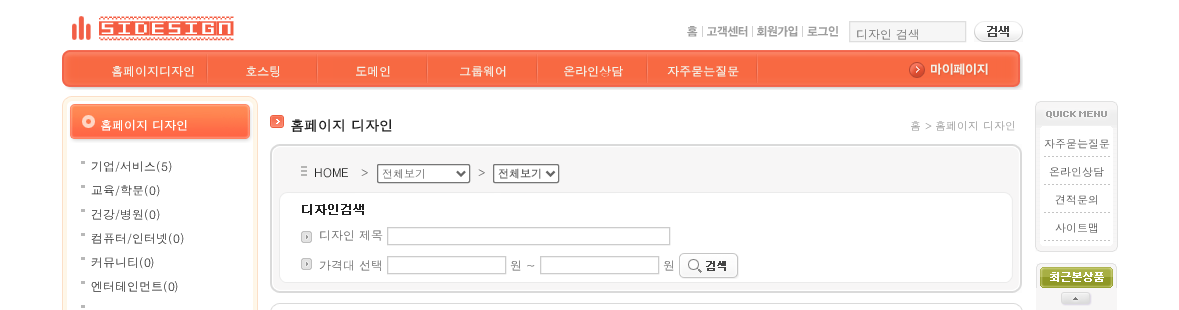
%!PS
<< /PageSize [1179 310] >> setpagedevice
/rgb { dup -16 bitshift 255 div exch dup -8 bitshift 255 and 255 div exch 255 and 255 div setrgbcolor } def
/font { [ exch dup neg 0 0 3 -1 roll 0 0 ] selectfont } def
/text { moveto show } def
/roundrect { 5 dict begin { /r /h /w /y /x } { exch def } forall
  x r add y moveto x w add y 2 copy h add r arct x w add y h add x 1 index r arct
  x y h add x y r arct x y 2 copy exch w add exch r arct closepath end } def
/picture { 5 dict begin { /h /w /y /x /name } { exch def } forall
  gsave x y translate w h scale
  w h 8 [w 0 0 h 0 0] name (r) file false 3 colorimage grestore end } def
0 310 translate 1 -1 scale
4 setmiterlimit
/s1 { /Dotum-Regular 12 font 16#6E6E6E rgb } def
/s2 { /Dotum-Bold 12 font 16#F4F0E7 rgb } def
/s3 { /Dotum-Bold 12 font 16#FFFFFF rgb } def
/s4 { /Dotum-Regular 12 font 16#2C2C2C rgb } def
/s5 { /Dotum-Bold 14 font 16#222222 rgb } def
/s6 { /Dotum-Regular 11 font 16#999999 rgb } def
/s7 { /Dotum-Regular 12 font 16#222222 rgb } def
/s8 { /Dotum-Regular 12 font 16#666666 rgb } def
/s9 { /Dotum-Regular 11 font 16#666666 rgb } def
/s10 { /Dotum-Bold 11 font 16#666666 rgb } def
/s11 { /Dotum-Regular 11 font 16#555555 rgb } def
16#FFFFFF rgb
0 0 1179 310 rectfill
(pic1.raw) 72 16 162 25 picture
(pic2.raw) 687 26 11 11 picture
16#D1D1D1 rgb
702 26 1 11 rectfill
(pic3.raw) 707 26 41 11 picture
752 26 1 11 rectfill
(pic4.raw) 757 26 41 11 picture
802 26 1 11 rectfill
(pic5.raw) 807 26 31 11 picture
16#F6F6F6 rgb
849.5 21.5 moveto 965.5 21.5 lineto 965.5 41.5 lineto 849.5 41.5 lineto closepath gsave fill grestore
16#DEDEDE rgb
stroke
s1
(디자인 검색) 856 39 text
(pic6.raw) 974 21 49 21 picture
(pic7.raw) 62 50 961 40 picture
(pic8.raw) 206 54 2 29 picture
s2
(홈페이지디자인) 111 76 text
(pic8.raw) 316 54 2 29 picture
(호스팅) 245 76 text
(pic8.raw) 426 54 2 29 picture
(도메인) 355 76 text
(pic8.raw) 536 54 2 29 picture
(그룹웨어) 459 76 text
(pic8.raw) 646 54 2 29 picture
(온라인상담) 563 76 text
(pic8.raw) 756 54 2 29 picture
(자주묻는질문) 667 76 text
(pic9.raw) 909 62 80 16 picture
(pic10.raw) 62 96 196 47 picture
s3
(홈페이지 디자인) 100 130 text
(pic11.raw) 62 143 196 167 picture
16#B8B8B8 rgb
81 161 4 3 rectfill
s4
(기업/서비스\(5\)) 91 171 text
16#B8B8B8 rgb
81 185 4 3 rectfill
s4
(교육/학문\(0\)) 91 195 text
16#B8B8B8 rgb
81 209 4 3 rectfill
s4
(건강/병원\(0\)) 91 219 text
16#B8B8B8 rgb
81 233 4 3 rectfill
s4
(컴퓨터/인터넷\(0\)) 91 243 text
16#B8B8B8 rgb
81 257 4 3 rectfill
s4
(커뮤니티\(0\)) 91 267 text
16#B8B8B8 rgb
81 281 4 3 rectfill
s4
(엔터테인먼트\(0\)) 91 291 text
16#B8B8B8 rgb
81 305 4 3 rectfill
(pic12.raw) 270 115 14 13 picture
s5
(홈페이지 디자인) 290 131 text
s6
(홈 > 홈페이지 디자인) 910 130 text
(pic13.raw) 270 144 752 149 picture
s7
(HOME) 314 177 text
s8
(>) 361 177 text
16#FFFFFF rgb
377.5 164.5 92 18 1.5 roundrect gsave fill grestore
16#767676 rgb
stroke
16#666666 rgb
2 setlinewidth
457 171.5 moveto 461 175.5 lineto 465 171.5 lineto stroke
s9
(전체보기) 382 178 text
s8
(>) 478 177 text
16#FFFFFF rgb
493.5 164.5 65 18 1.5 roundrect gsave fill grestore
16#767676 rgb
1 setlinewidth
stroke
16#666666 rgb
2 setlinewidth
546.5 171.5 moveto 550.5 175.5 lineto 554.5 171.5 lineto stroke
s10
(전체보기) 498 178 text
(pic14.raw) 301 231 11 12 picture
s8
(디자인 제목) 319 240 text
16#CCCCCC rgb
1 setlinewidth
387.5 227.5 282 17 rectstroke
(pic14.raw) 301 258 11 12 picture
s8
(가격대 선택) 319 270 text
16#CCCCCC rgb
387.5 256.5 118 17 rectstroke
s8
(원 ~) 510 270 text
16#CCCCCC rgb
540.5 256.5 118 17 rectstroke
s8
(원) 663 270 text
(pic15.raw) 679 253 60 26 picture
(pic16.raw) 270 303 753 7 picture
(pic17.raw) 1035 128 83 116 picture
(pic18.raw) 1035 101 83 27 picture
(pic19.raw) 1044 156 66 1 picture
s11
(자주묻는질문) 1044 148 text
(pic19.raw) 1044 184 66 1 picture
(온라인상담) 1049 176 text
(pic19.raw) 1044 212 66 1 picture
(견적문의) 1055 204 text
(pic19.raw) 1044 240 66 1 picture
(사이트맵) 1055 232 text
(pic20.raw) 1035 244 83 8 picture
16#F7F6F6 rgb
1036 288 81 22 rectfill
(pic21.raw) 1036 263 81 25 picture
(pic22.raw) 1061 292 31 14 picture
showpage
